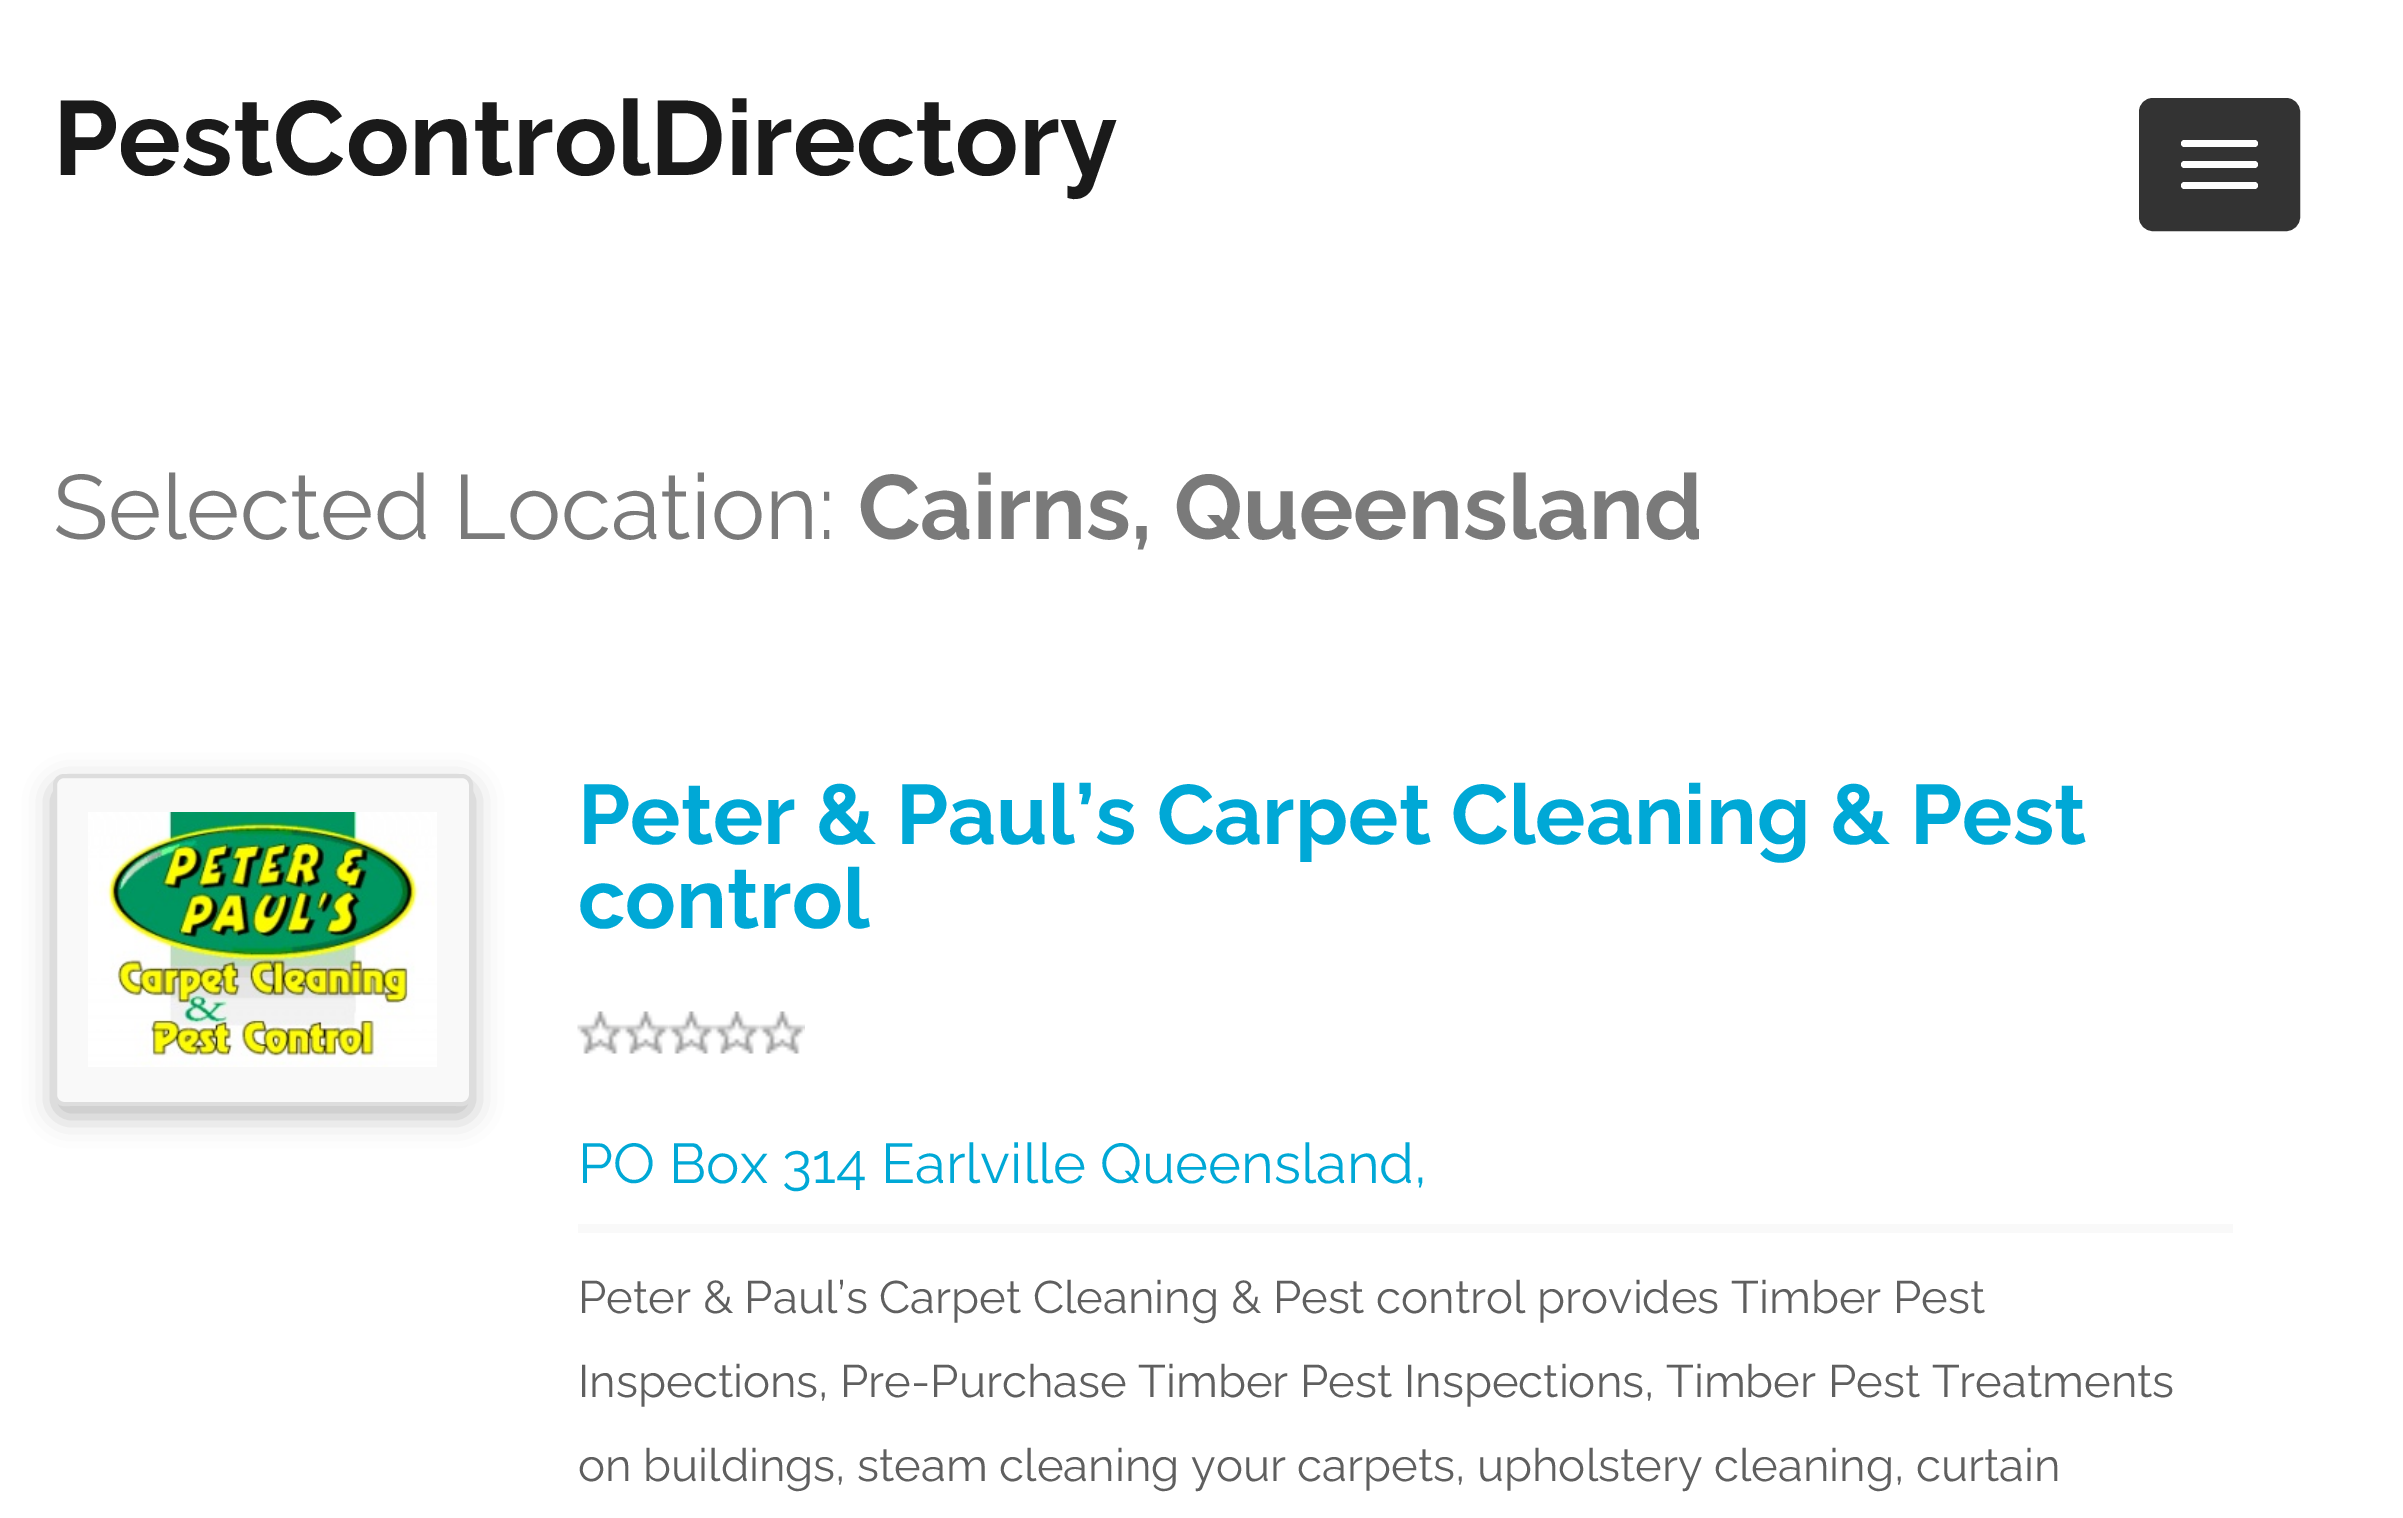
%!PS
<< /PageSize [2403 1518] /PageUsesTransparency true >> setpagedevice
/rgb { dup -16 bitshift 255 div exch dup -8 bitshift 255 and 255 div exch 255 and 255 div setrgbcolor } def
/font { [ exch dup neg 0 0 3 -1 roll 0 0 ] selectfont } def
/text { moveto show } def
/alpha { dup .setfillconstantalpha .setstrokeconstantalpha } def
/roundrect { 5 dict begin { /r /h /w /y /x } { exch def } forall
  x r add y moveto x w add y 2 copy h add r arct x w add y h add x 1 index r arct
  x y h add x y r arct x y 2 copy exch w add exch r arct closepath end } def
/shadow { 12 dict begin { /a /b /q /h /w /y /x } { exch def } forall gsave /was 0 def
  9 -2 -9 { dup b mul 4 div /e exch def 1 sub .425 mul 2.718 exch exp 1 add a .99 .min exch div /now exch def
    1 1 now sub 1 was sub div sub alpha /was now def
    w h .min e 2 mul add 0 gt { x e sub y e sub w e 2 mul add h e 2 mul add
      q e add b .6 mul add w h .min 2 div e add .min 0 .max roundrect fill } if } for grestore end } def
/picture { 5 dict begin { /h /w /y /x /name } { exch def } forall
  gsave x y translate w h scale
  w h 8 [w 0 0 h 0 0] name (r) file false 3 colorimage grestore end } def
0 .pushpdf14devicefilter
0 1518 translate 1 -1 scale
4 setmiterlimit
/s1 { /Raleway-Bold 105 font 16#1A1A1A rgb } def
/s2 { /Raleway-Regular 91 font 16#7A7A7A rgb } def
/s3 { /Raleway-Bold 91 font 16#7A7A7A rgb } def
/s4 { /Raleway-Bold 84 font 16#00A8D6 rgb } def
/s5 { /Raleway-Regular 56 font 16#00A8D6 rgb } def
/s6 { /Raleway-Regular 45.5 font 16#5F5F5F rgb } def
16#FFFFFF rgb
0 0 2403 1518 rectfill
s1
(PestControlDirectory) 53 175 text
16#333333 rgb
2142.5 101.5 154 126 10.5 roundrect gsave fill grestore
7 setlinewidth
stroke
16#FFFFFF rgb
2181 140 77 7 3.5 roundrect fill
2181 161 77 7 3.5 roundrect fill
2181 182 77 7 3.5 roundrect fill
s2
(Selected Location:) 53 539 text
s3
(Cairns, Queensland) 858 539 text
16#BBBBBB rgb
53 784 420 333 11 14 1 shadow
16#F9F9F9 rgb
55 776 416 328 9 roundrect gsave fill grestore
16#DDDDDD rgb
4 setlinewidth
stroke
(pic1.raw) 88 812 349 255 picture
s4
(Peter & Paul’s Carpet Cleaning & Pest) 578 844 text
(control) 578 928 text
(pic2.raw) 577 1011 46 43 picture
(pic3.raw) 623 1011 46 43 picture
(pic4.raw) 668 1011 46 43 picture
(pic3.raw) 714 1011 46 43 picture
(pic4.raw) 759 1011 46 43 picture
s5
(PO Box 314 Earlville Queensland,) 578 1183 text
16#F9F9F9 rgb
578 1224 1655 9 rectfill
s6
(Peter & Paul’s Carpet Cleaning & Pest control provides Timber Pest) 578 1313 text
(Inspections, Pre-Purchase Timber Pest Inspections, Timber Pest Treatments) 578 1397 text
(on buildings, steam cleaning your carpets, upholstery cleaning, curtain) 578 1481 text
.poppdf14devicefilter showpage
